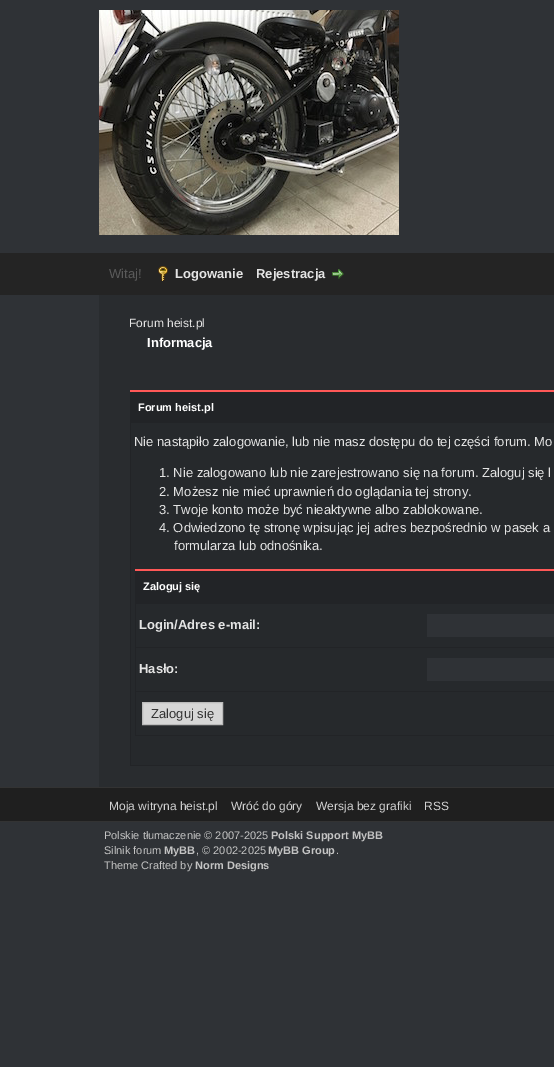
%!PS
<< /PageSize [554 1067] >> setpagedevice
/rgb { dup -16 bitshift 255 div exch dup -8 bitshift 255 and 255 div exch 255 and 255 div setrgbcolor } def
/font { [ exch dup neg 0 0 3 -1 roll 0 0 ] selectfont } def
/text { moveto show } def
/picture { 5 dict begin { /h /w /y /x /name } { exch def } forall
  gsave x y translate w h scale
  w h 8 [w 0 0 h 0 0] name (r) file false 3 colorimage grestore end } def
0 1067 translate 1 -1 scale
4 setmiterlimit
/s1 { /LiberationSans-Regular 13 font 16#5A5A5A rgb } def
/s2 { /LiberationSans-Bold 13 font 16#E4E4E4 rgb } def
/s3 { /LiberationSans-Regular 12 font 16#E4E4E4 rgb } def
/s4 { /LiberationSans-Bold 13 font 16#FFFFFF rgb } def
/s5 { /LiberationSans-Bold 11 font 16#FFFFFF rgb } def
/s6 { /LiberationSans-Regular 13 font 16#E4E4E4 rgb } def
/s7 { /LiberationSans-Regular 13 font 16#333333 rgb } def
/s8 { /LiberationSans-Regular 12 font 16#D3D3D3 rgb } def
/s9 { /LiberationSans-Regular 11 font 16#C4C4C4 rgb } def
/s10 { /LiberationSans-Bold 11 font 16#C4C4C4 rgb } def
16#2F3236 rgb
0 0 554 1067 rectfill
(pic1.raw) 99 10 300 225 picture
16#242424 rgb
0 253 554 42 rectfill
s1
(Witaj!) 109 278 text
(pic2.raw) 158 266 10 15 picture
s2
(Logowanie) 175 278 text
(Rejestracja) 256 278 text
(pic3.raw) 332 269 12 10 picture
16#292C2F rgb
99 295 455 492 rectfill
s3
(Forum heist.pl) 129 327 text
s4
(Informacja) 147 347 text
16#222427 rgb
130 392 424 31 rectfill
16#FF5857 rgb
130 390 424 2 rectfill
s5
(Forum heist.pl) 138 411 text
16#26292C rgb
131 423 423 342 rectfill
16#222427 rgb
130 765 424 1 rectfill
130 423 1 343 rectfill
s6
(Nie nastąpiło zalogowanie, lub nie masz dostępu do tej części forum. Mo) 134 446 text
(1. Nie zalogowano lub nie zarejestrowano się na forum. Zaloguj się l) 159 477 text
(2. Możesz nie mieć uprawnień do oglądania tej strony.) 159 496 text
(3. Twoje konto może być nieaktywne albo zablokowane.) 159 514 text
(4. Odwiedzono tę stronę wpisując jej adres bezpośrednio w pasek a) 159 532 text
(formularza lub odnośnika.) 174 550 text
16#222427 rgb
135 571 419 33 rectfill
16#FF5857 rgb
135 569 419 2 rectfill
s5
(Zaloguj się) 143 590 text
16#222427 rgb
135 647 419 1 rectfill
135 604 1 44 rectfill
s2
(Login/Adres e-mail:) 139 629 text
16#2F3236 rgb
427 614 127 23 rectfill
16#222427 rgb
135 691 419 1 rectfill
135 648 1 44 rectfill
s2
(Hasło:) 139 673 text
16#2F3236 rgb
427 658 127 23 rectfill
16#222427 rgb
135 735 419 1 rectfill
135 692 1 44 rectfill
16#D6D6D6 rgb
142.5 702.5 moveto 222.5 702.5 lineto 222.5 724.5 lineto 142.5 724.5 lineto closepath gsave fill grestore
16#BBBBBB rgb
stroke
s7
(Zaloguj się) 151 718 text
16#1F1F1F rgb
0 788 554 33 rectfill
16#333333 rgb
0 787 554 1 rectfill
0 821 554 1 rectfill
s8
(Moja witryna heist.pl) 109 810 text
(Wróć do góry) 231 810 text
(Wersja bez grafiki) 316 810 text
(RSS) 424 810 text
s9
(Polskie tłumaczenie © 2007-2025) 104 839 text
s10
(Polski Support MyBB) 271 839 text
s9
(Silnik forum) 104 854 text
s10
(MyBB) 164 854 text
s9
(, © 2002-2025) 196 854 text
s10
(MyBB Group) 268 854 text
s9
(.) 336 854 text
(Theme Crafted by) 104 869 text
s10
(Norm Designs) 195 869 text
showpage
